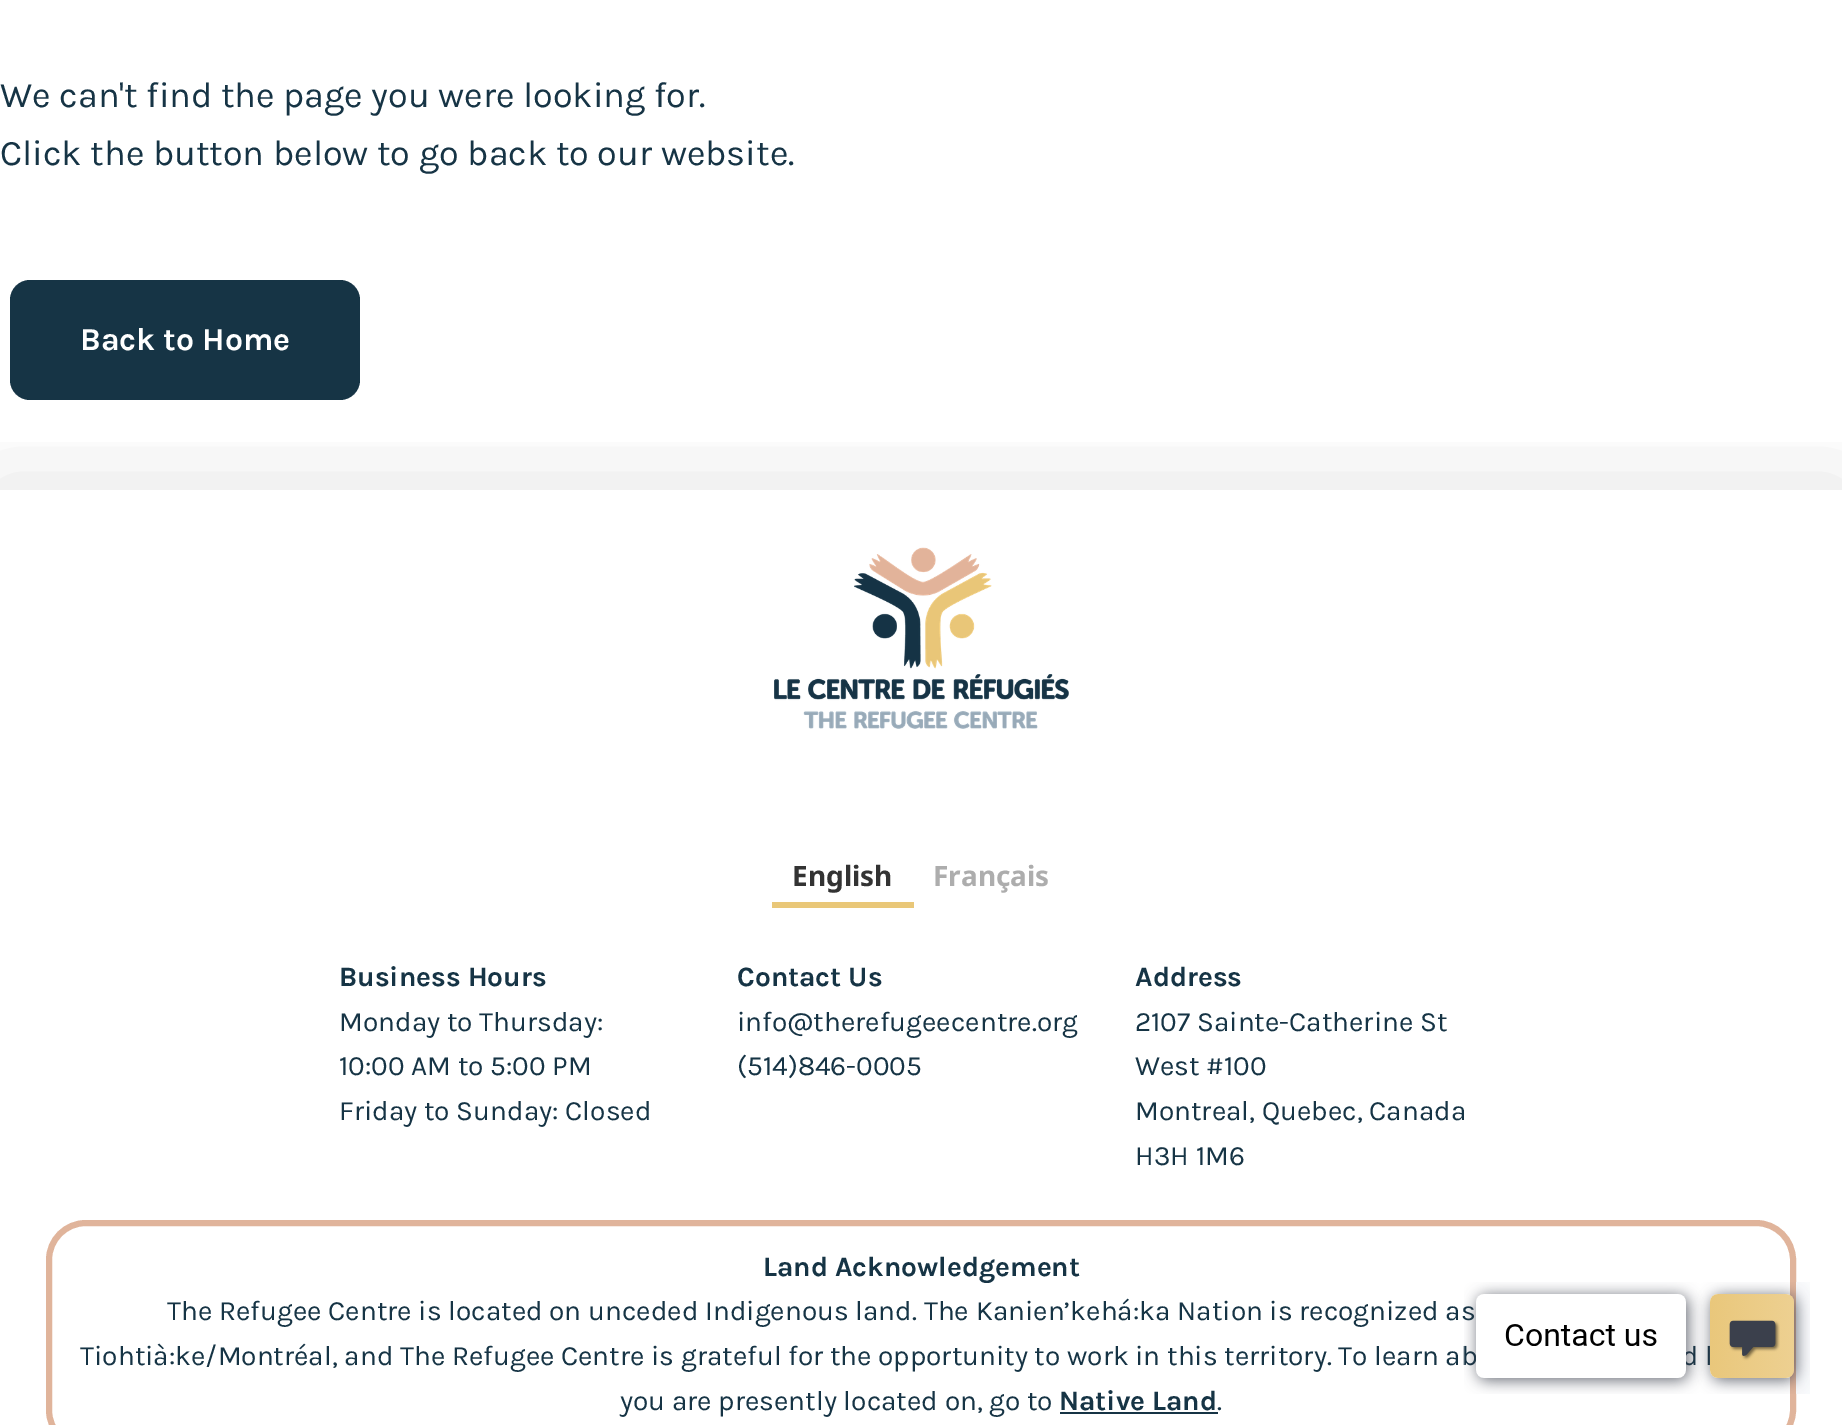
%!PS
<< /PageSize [1842 1425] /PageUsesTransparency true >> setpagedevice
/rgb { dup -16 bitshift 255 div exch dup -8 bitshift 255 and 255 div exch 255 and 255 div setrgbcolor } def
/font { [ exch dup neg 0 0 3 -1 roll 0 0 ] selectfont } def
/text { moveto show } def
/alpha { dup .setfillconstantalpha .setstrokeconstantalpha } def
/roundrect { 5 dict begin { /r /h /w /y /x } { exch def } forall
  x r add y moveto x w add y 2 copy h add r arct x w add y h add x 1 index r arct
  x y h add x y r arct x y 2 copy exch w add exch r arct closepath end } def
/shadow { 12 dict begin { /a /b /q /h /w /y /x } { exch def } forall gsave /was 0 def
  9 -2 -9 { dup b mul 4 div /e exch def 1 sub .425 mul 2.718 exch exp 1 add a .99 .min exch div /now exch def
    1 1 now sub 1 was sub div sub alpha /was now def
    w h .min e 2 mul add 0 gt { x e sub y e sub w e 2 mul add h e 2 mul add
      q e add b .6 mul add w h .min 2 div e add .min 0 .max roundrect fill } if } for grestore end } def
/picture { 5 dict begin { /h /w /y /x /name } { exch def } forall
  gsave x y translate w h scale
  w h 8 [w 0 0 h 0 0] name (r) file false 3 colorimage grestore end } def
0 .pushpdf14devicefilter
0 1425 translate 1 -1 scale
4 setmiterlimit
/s1 { /Karla-Regular 36 font 16#163445 rgb } def
/s2 { /Karla-Bold 32 font 16#FFFFFF rgb } def
/s3 { /NotoSans-Bold 28 font 16#333333 rgb } def
/s4 { /NotoSans-Bold 28 font 16#ADADAD rgb } def
/s5 { /Karla-Bold 28 font 16#163445 rgb } def
/s6 { /Karla-Regular 28 font 16#163445 rgb } def
16#FFFFFF rgb
0 0 1842 1425 rectfill
s1
(We can't find the page you were looking for.) 0 107 text
(Click the button below to go back to our website.) 0 165 text
gsave
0 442 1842 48 rectclip
16#000000 rgb
-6 484 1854 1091 0 50 0.1 shadow
grestore
10 280 350 120 20 roundrect fill
s2
(Back to Home) 80 350 text
(pic1.raw) 774 547 295 182 picture
s3
(English) 792 886 text
16#E9C778 rgb
772 902 142 6 rectfill
s4
(Français) 933 886 text
s5
(Business Hours) 339 986 text
s6
(Monday to Thursday:) 339 1031 text
(10:00 AM to 5:00 PM) 339 1075 text
(Friday to Sunday: Closed) 339 1120 text
s5
(Contact Us) 737 986 text
s6
(info@therefugeecentre.org) 737 1031 text
(\(514\)846-0005) 737 1075 text
s5
(Address) 1135 986 text
s6
(2107 Sainte-Catherine St) 1135 1031 text
(West #100) 1135 1075 text
(Montreal, Quebec, Canada) 1135 1120 text
(H3H 1M6) 1135 1165 text
16#E0B49B rgb
6 setlinewidth
49 1223 1744 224 37 roundrect stroke
s5
(Land Acknowledgement) 763 1276 text
s6
(The Refugee Centre is located on unceded Indigenous land. The Kanien’kehá:ka Nation is recognized as) 167 1320 text
(Tiohtià:ke/Montréal, and The Refugee Centre is grateful for the opportunity to work in this territory. To learn ab) 80 1365 text
(d l) 1682 1365 text
(you are presently located on, go to) 620 1410 text
s5
(Native Land) 1059 1410 text
1060 1412 158 2 rectfill
s6
(.) 1217 1410 text
(pic2.raw) 1464 1282 346 112 picture
.poppdf14devicefilter showpage
